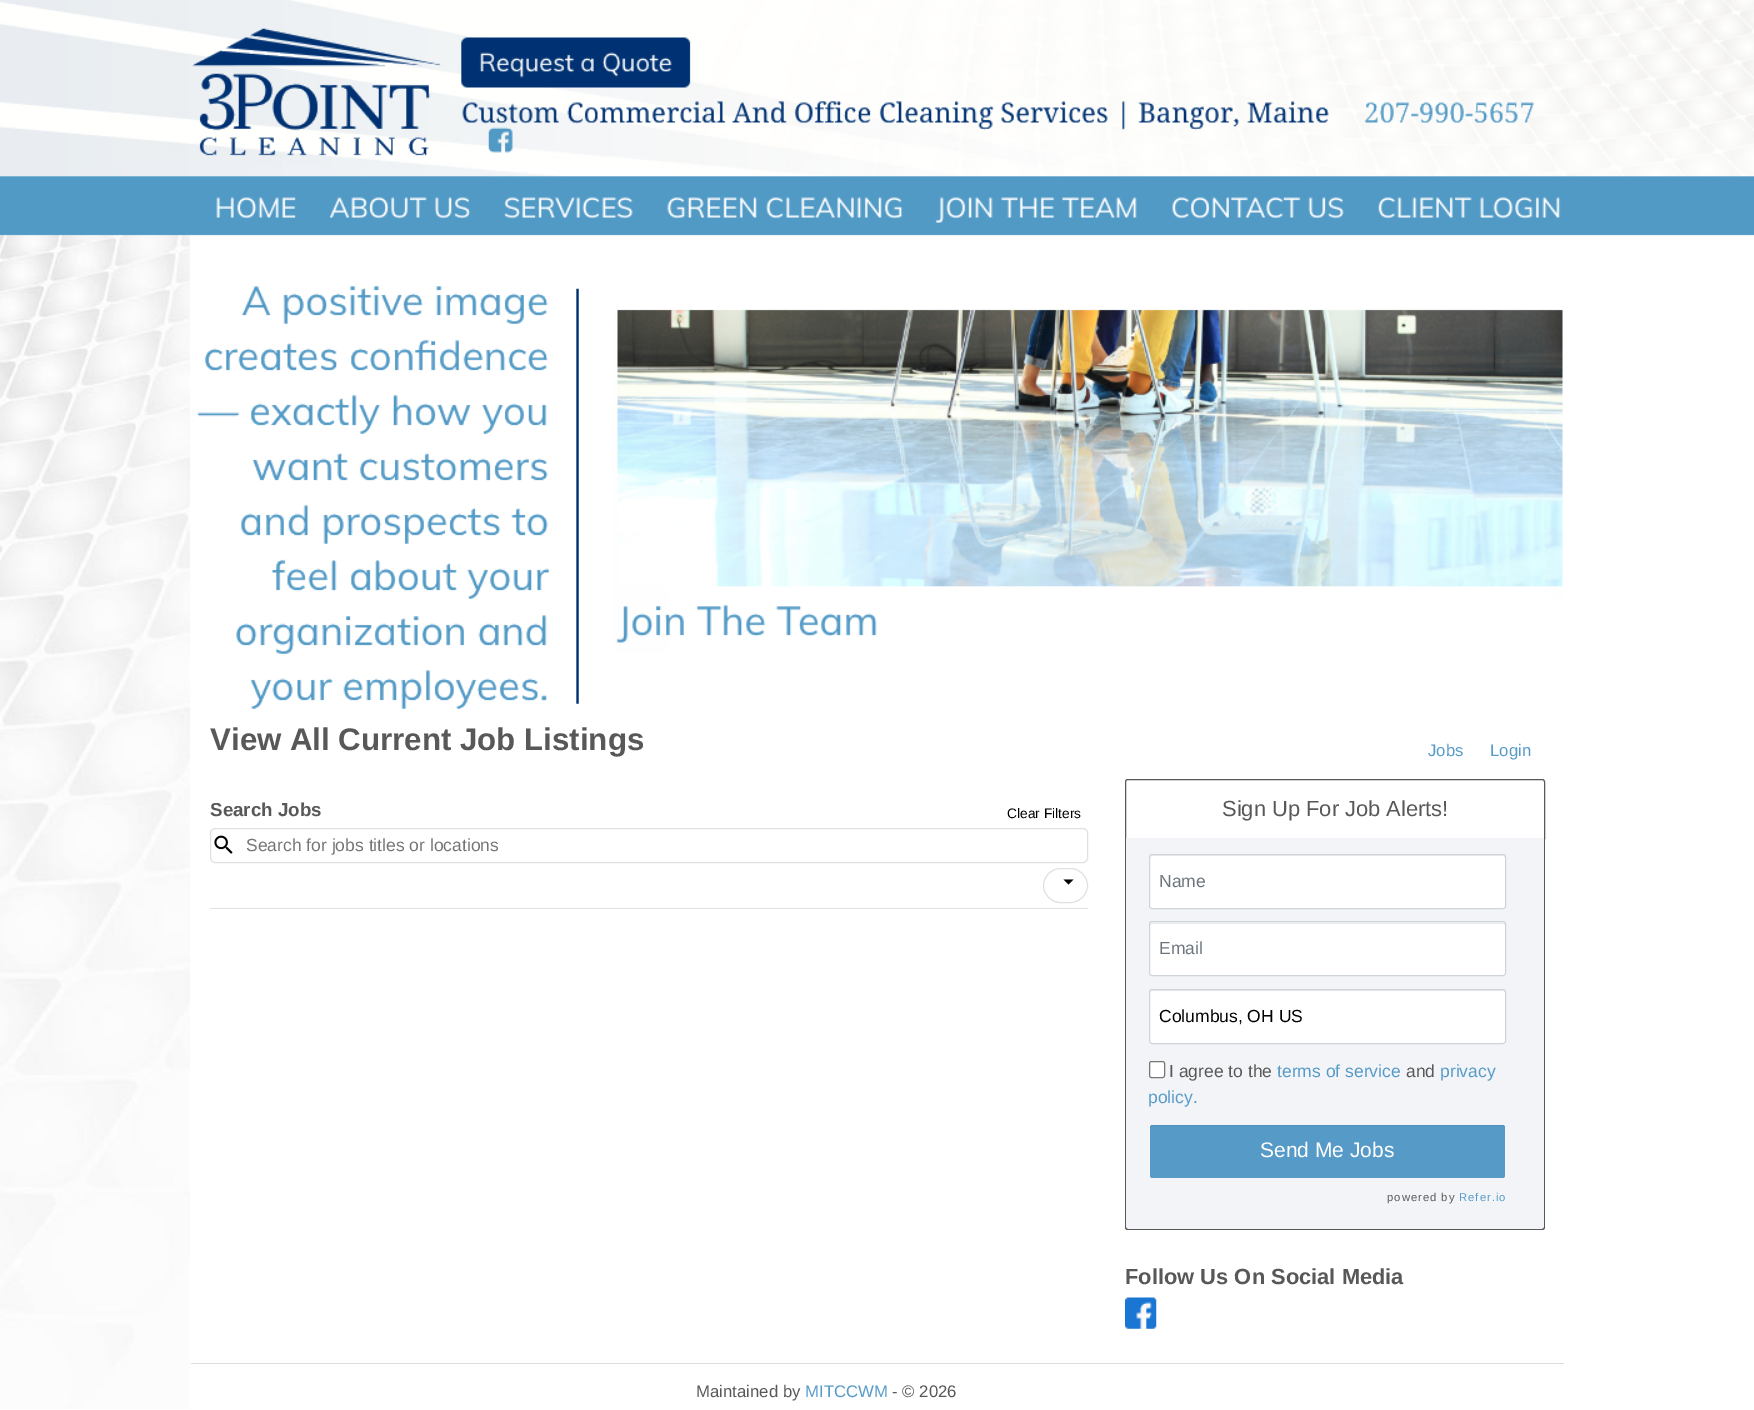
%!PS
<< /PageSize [1754 1410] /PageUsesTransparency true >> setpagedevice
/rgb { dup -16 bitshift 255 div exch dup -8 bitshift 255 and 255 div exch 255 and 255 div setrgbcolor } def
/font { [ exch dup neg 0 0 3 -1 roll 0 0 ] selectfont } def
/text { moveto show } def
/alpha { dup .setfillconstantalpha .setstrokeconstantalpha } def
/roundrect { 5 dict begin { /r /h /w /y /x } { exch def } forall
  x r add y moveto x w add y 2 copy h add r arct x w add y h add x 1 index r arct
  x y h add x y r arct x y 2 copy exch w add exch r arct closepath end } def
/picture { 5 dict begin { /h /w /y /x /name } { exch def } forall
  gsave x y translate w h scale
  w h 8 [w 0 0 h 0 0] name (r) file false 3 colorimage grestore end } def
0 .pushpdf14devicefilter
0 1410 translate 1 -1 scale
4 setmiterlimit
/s1 { /LiberationSans-Bold 31.25 font 16#585858 rgb } def
/s2 { /LiberationSans-Regular 16.75 font 16#569AC8 rgb } def
/s3 { /LiberationSans-Bold 18.75 font 16#585858 rgb } def
/s4 { /LiberationSans-Regular 13.75 font 16#000000 rgb } def
/s5 { /LiberationSans-Regular 17.5 font 16#757575 rgb } def
/s6 { /LiberationSans-Regular 21.9 font 16#585858 rgb } def
/s7 { /LiberationSans-Regular 17.5 font 16#6C757D rgb } def
/s8 { /LiberationSans-Regular 17.5 font 16#000000 rgb } def
/s9 { /LiberationSans-Regular 17.5 font 16#585858 rgb } def
/s10 { /LiberationSans-Regular 17.5 font 16#569AC8 rgb } def
/s11 { /LiberationSans-Regular 21 font 16#FFFFFF rgb } def
/s12 { /LiberationSans-Bold 21.9 font 16#585858 rgb } def
/s13 { /LiberationSans-Regular 16.75 font 16#585858 rgb } def
16#FFFFFF rgb
0 0 1754 1410 rectfill
(pic1.raw) 0 0 1754 1409 picture
190 700 1375 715 5 roundrect fill
(pic2.raw) 190 28 1373 681 picture
s1
(View All Current Job Listings) 210 750 text
s2
(Jobs) 1428 756 text
(Login) 1490 756 text
16#E0E0E0 rgb
210 908 878 1 rectfill
s3
(Search Jobs) 210 816 text
s4
(Clear Filters) 1007 818 text
16#E0E0E0 rgb
210.5 828.5 877 34 4.5 roundrect stroke
(pic3.raw) 214 835 19 19 picture
s5
(Search for jobs titles or locations) 246 851 text
16#E0E0E0 rgb
1043.5 868.5 44 34 17 roundrect stroke
16#000000 rgb
1063.5 879.5 moveto 1068.5 884.5 lineto 1073.5 879.5 lineto closepath fill
16#585858 rgb
1128 779.5 moveto 1542 779.5 lineto 1543.5 779.5 1544.5 780.5 1544.5 782 curveto 1544.5 838.5 lineto 1125.5 838.5 lineto 1125.5 782 lineto 1125.5 780.5 1126.5 779.5 1128 779.5 curveto closepath stroke
s6
(Sign Up For Job Alerts!) 1222 816 text
16#F3F4F7 rgb
1126 838 moveto 1544 838 lineto 1544 1227 lineto 1544 1228 1543 1229 1542 1229 curveto 1128 1229 lineto 1127 1229 1126 1228 1126 1227 curveto closepath fill
16#585858 rgb
1125 838 moveto 1545 838 lineto 1545 1227 lineto 1545 1229 1544 1230 1542 1230 curveto 1128 1230 lineto 1126 1230 1125 1229 1125 1227 curveto closepath 1126 838 moveto 1544 838 lineto 1544 1227 lineto 1544 1228 1543 1229 1542 1229 curveto 1128 1229 lineto 1127 1229 1126 1228 1126 1227 curveto closepath eofill
16#FFFFFF rgb
1150 855 355 53 2 roundrect fill
16#ECECEC rgb
1152 856 moveto 1503 856 lineto 1504 856 1505 857 1505 858 curveto 1505 857 1505 855 1503 855 curveto 1152 855 lineto 1150 855 1150 857 1150 858 curveto 1150 857 1151 856 1152 856 curveto closepath fill
16#CED4DA rgb
1149.5 854.5 356 54 2.5 roundrect stroke
s7
(Name) 1159 887 text
16#FFFFFF rgb
1150 923 355 52 2 roundrect fill
16#ECECEC rgb
1152 924 moveto 1503 924 lineto 1504 924 1505 925 1505 926 curveto 1505 925 1505 923 1503 923 curveto 1152 923 lineto 1150 923 1150 925 1150 926 curveto 1150 925 1151 924 1152 924 curveto closepath fill
16#CED4DA rgb
1149.5 921.5 356 54 2.5 roundrect stroke
s7
(Email) 1159 954 text
16#FFFFFF rgb
1150 990 355 53 2 roundrect fill
16#ECECEC rgb
1152 991 moveto 1503 991 lineto 1504 991 1505 992 1505 993 curveto 1505 992 1505 990 1503 990 curveto 1152 990 lineto 1150 990 1150 992 1150 993 curveto 1150 992 1151 991 1152 991 curveto closepath fill
16#CED4DA rgb
1149.5 989.5 356 54 2.5 roundrect stroke
s8
(Columbus, OH US) 1159 1022 text
16#FFFFFF rgb
1149.5 1061.5 15 16 2 roundrect gsave fill grestore
16#767676 rgb
stroke
s9
(I agree to the) 1169 1077 text
s10
(terms of service) 1277 1077 text
s9
(and) 1406 1077 text
s10
(privacy) 1440 1077 text
(policy.) 1148 1103 text
1150 1125 355 53 2.5 roundrect fill
0.07 alpha
16#000000 rgb
1152 1126 moveto 1502 1126 lineto 1504 1126 1505 1127 1505 1129 curveto 1505 1126 lineto 1503 1125 lineto 1152 1125 lineto 1150 1125 1150 1127 1150 1129 curveto 1150 1127 1151 1126 1152 1126 curveto closepath fill
1 alpha
s11
(Send Me Jobs) 1260 1157 text
/LiberationSans-Regular 11.25 font
16#585858 rgb
1387 1201 moveto 1 0 (powered by) ashow
16#569AC8 rgb
1459 1201 moveto 1 0 (Refer.io) ashow
s12
(Follow Us On Social Media) 1125 1284 text
(pic4.raw) 1125 1297 32 32 picture
16#DDDDDD rgb
191 1363 1373 1 rectfill
s13
(Maintained by) 696 1397 text
s2
(MITCCWM) 805 1397 text
s13
(- © 2026) 892 1397 text
.poppdf14devicefilter showpage
